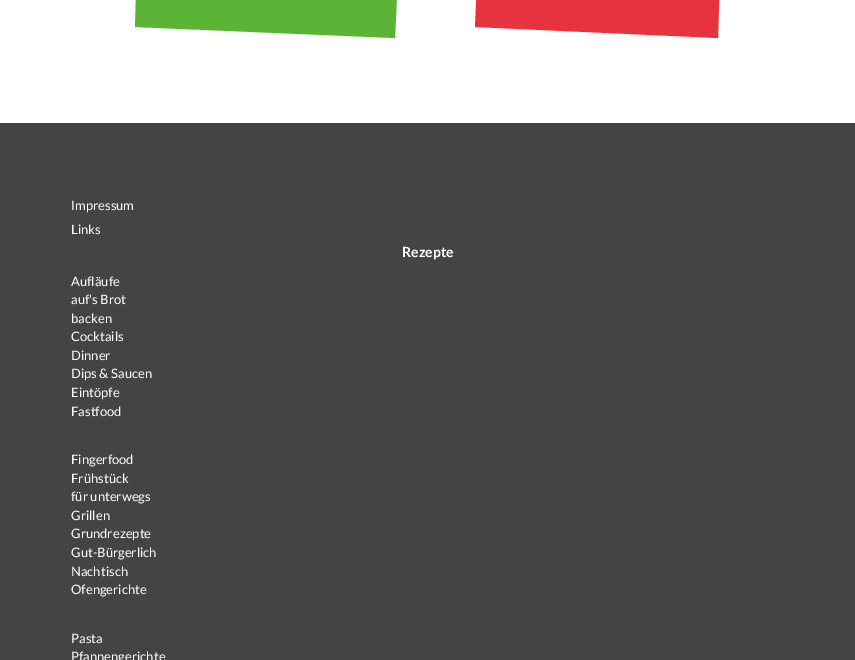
%!PS
<< /PageSize [855 660] >> setpagedevice
/rgb { dup -16 bitshift 255 div exch dup -8 bitshift 255 and 255 div exch 255 and 255 div setrgbcolor } def
/font { [ exch dup neg 0 0 3 -1 roll 0 0 ] selectfont } def
/text { moveto show } def
0 660 translate 1 -1 scale
4 setmiterlimit
/s1 { /Lato-Regular 13 font 16#FFFFFF rgb } def
/s2 { /Lato-Bold 14 font 16#FFFFFF rgb } def
16#FFFFFF rgb
0 0 855 660 rectfill
16#5BB436 rgb
137 -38 moveto 398 -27 lineto 395 38 lineto 135 27 lineto closepath fill
16#E6333F rgb
478 -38 moveto 720 -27 lineto 718 38 lineto 475 27 lineto closepath fill
16#444444 rgb
0 123 855 537 rectfill
s1
(Impressum) 71 210 text
(Links) 71 234 text
s2
(Rezepte) 402 257 text
s1
(Aufläufe) 71 286 text
(auf's Brot) 71 304 text
(backen) 71 323 text
(Cocktails) 71 341 text
(Dinner) 71 360 text
(Dips & Saucen) 71 378 text
(Eintöpfe) 71 397 text
(Fastfood) 71 416 text
(Fingerfood) 71 464 text
(Frühstück) 71 483 text
(für unterwegs) 71 501 text
(Grillen) 71 520 text
(Grundrezepte) 71 538 text
(Gut-Bürgerlich) 71 557 text
(Nachtisch) 71 576 text
(Ofengerichte) 71 594 text
(Pasta) 71 643 text
(Pfannengerichte) 71 661 text
showpage
